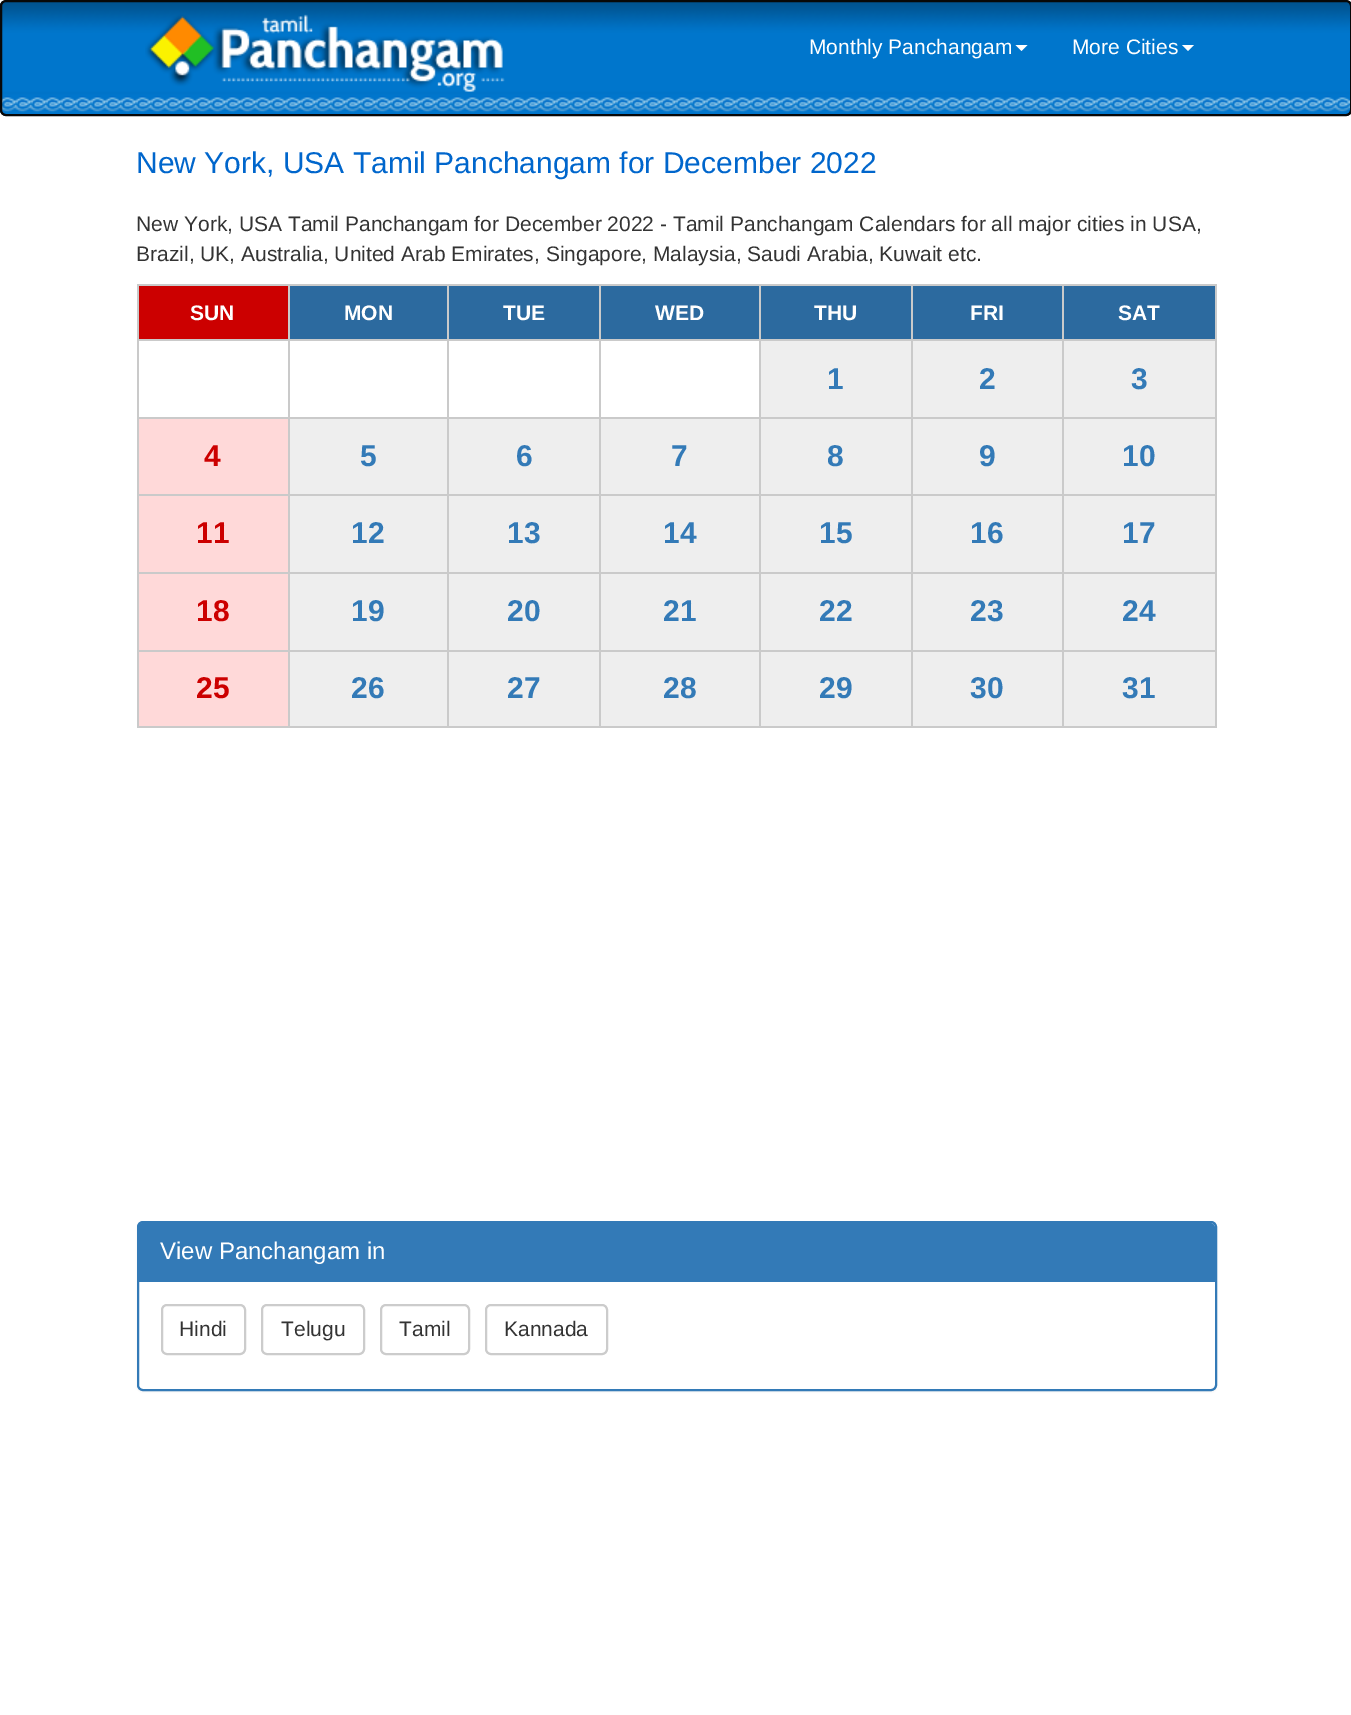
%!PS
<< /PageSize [1351 1715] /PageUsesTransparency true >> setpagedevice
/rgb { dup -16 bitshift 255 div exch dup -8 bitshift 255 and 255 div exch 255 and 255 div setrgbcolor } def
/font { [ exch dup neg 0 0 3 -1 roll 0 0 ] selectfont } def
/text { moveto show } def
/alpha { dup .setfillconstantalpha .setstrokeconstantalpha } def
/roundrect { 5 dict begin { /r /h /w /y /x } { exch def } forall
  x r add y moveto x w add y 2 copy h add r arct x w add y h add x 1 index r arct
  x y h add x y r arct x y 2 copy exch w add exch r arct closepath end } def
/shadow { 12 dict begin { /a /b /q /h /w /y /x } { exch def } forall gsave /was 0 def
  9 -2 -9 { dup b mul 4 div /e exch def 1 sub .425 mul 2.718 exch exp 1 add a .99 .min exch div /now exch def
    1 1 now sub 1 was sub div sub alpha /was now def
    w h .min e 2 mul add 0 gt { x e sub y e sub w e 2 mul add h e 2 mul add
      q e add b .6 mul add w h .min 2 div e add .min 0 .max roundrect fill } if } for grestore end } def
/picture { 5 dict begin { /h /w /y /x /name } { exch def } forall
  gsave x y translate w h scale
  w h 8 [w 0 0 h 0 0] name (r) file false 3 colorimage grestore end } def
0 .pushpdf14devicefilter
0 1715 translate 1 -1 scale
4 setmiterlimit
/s1 { /LiberationSans-Regular 21 font 16#FFFFFF rgb } def
/s2 { /LiberationSans-Regular 30 font 16#0066CC rgb } def
/s3 { /LiberationSans-Regular 21 font 16#333333 rgb } def
/s4 { /LiberationSans-Bold 21 font 16#FFFFFF rgb } def
/s5 { /LiberationSans-Bold 30 font 16#337AB7 rgb } def
/s6 { /LiberationSans-Bold 30 font 16#CC0000 rgb } def
/s7 { /LiberationSans-Regular 24 font 16#FFFFFF rgb } def
16#FFFFFF rgb
0 0 1351 1715 rectfill
(pic1.raw) 0 1 1351 115 picture
16#080808 rgb
2 setlinewidth
1 1 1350 114 5 roundrect stroke
(pic2.raw) 145 14 360 78 picture
s1
(Monthly Panchangam) 809 54 text
1015.5 45 moveto 1027.5 45 lineto 1021.5 51 lineto closepath fill
(More Cities) 1072 54 text
1182 45 moveto 1194 45 lineto 1188 51 lineto closepath fill
s2
(New York, USA Tamil Panchangam for December 2022) 136 173 text
s3
(New York, USA Tamil Panchangam for December 2022 - Tamil Panchangam Calendars for all major cities in USA,) 136 231 text
(Brazil, UK, Australia, United Arab Emirates, Singapore, Malaysia, Saudi Arabia, Kuwait etc.) 136 261 text
16#CACACA rgb
137 284 1080 2 rectfill
1215 284 2 444 rectfill
137 726 1080 2 rectfill
137 284 2 444 rectfill
137 339 1080 2 rectfill
16#CC0000 rgb
139 286 149 53 rectfill
s4
(SUN) 190 320 text
16#2C6A9F rgb
290 286 157 53 rectfill
s4
(MON) 344 320 text
16#2C6A9F rgb
449 286 150 53 rectfill
s4
(TUE) 503 320 text
16#2C6A9F rgb
601 286 158 53 rectfill
s4
(WED) 655 320 text
16#2C6A9F rgb
761 286 150 53 rectfill
s4
(THU) 814 320 text
16#2C6A9F rgb
913 286 149 53 rectfill
s4
(FRI) 970 320 text
16#2C6A9F rgb
1064 286 151 53 rectfill
s4
(SAT) 1118 320 text
16#CACACA rgb
1062 417 155 2 rectfill
1062 494 155 2 rectfill
1062 572 155 2 rectfill
1062 650 155 2 rectfill
1062 650 2 78 rectfill
911 650 153 2 rectfill
1062 572 2 79 rectfill
911 572 153 2 rectfill
1062 494 2 79 rectfill
911 494 153 2 rectfill
1062 417 2 78 rectfill
911 417 153 2 rectfill
911 650 2 78 rectfill
759 650 153 2 rectfill
911 572 2 79 rectfill
759 572 153 2 rectfill
911 494 2 79 rectfill
759 494 153 2 rectfill
911 417 2 78 rectfill
759 417 153 2 rectfill
759 650 2 78 rectfill
599 650 162 2 rectfill
759 572 2 79 rectfill
599 572 162 2 rectfill
759 494 2 79 rectfill
599 494 162 2 rectfill
759 417 2 78 rectfill
599 417 162 2 rectfill
599 650 2 78 rectfill
447 650 153 2 rectfill
599 572 2 79 rectfill
447 572 153 2 rectfill
599 494 2 79 rectfill
447 494 153 2 rectfill
599 417 2 78 rectfill
447 417 153 2 rectfill
447 650 2 78 rectfill
288 650 161 2 rectfill
447 572 2 79 rectfill
288 572 161 2 rectfill
447 494 2 79 rectfill
288 494 161 2 rectfill
447 417 2 78 rectfill
288 417 161 2 rectfill
288 650 2 78 rectfill
137 650 153 2 rectfill
288 572 2 79 rectfill
137 572 153 2 rectfill
288 494 2 79 rectfill
137 494 153 2 rectfill
288 417 2 78 rectfill
137 417 153 2 rectfill
288 284 2 135 rectfill
447 284 2 135 rectfill
599 284 2 135 rectfill
16#EEEEEE rgb
761 341 150 76 rectfill
16#CACACA rgb
759 284 2 135 rectfill
s5
(1) 827 389 text
16#EEEEEE rgb
913 341 149 76 rectfill
16#CACACA rgb
911 284 2 135 rectfill
s5
(2) 979 389 text
16#EEEEEE rgb
1064 341 151 76 rectfill
16#CACACA rgb
1062 284 2 135 rectfill
s5
(3) 1131 389 text
16#FFD9D9 rgb
139 419 149 75 rectfill
s6
(4) 204 466 text
16#EEEEEE rgb
290 419 157 75 rectfill
s5
(5) 360 466 text
16#EEEEEE rgb
449 419 150 75 rectfill
s5
(6) 516 466 text
16#EEEEEE rgb
601 419 158 75 rectfill
s5
(7) 671 466 text
16#EEEEEE rgb
761 419 150 75 rectfill
s5
(8) 827 466 text
16#EEEEEE rgb
913 419 149 75 rectfill
s5
(9) 979 466 text
16#EEEEEE rgb
1064 419 151 75 rectfill
s5
(10) 1122 466 text
16#FFD9D9 rgb
139 496 149 76 rectfill
s6
(11) 196 543 text
16#EEEEEE rgb
290 496 157 76 rectfill
s5
(12) 351 543 text
16#EEEEEE rgb
449 496 150 76 rectfill
s5
(13) 507 543 text
16#EEEEEE rgb
601 496 158 76 rectfill
s5
(14) 663 543 text
16#EEEEEE rgb
761 496 150 76 rectfill
s5
(15) 819 543 text
16#EEEEEE rgb
913 496 149 76 rectfill
s5
(16) 970 543 text
16#EEEEEE rgb
1064 496 151 76 rectfill
s5
(17) 1122 543 text
16#FFD9D9 rgb
139 574 149 76 rectfill
s6
(18) 196 621 text
16#EEEEEE rgb
290 574 157 76 rectfill
s5
(19) 351 621 text
16#EEEEEE rgb
449 574 150 76 rectfill
s5
(20) 507 621 text
16#EEEEEE rgb
601 574 158 76 rectfill
s5
(21) 663 621 text
16#EEEEEE rgb
761 574 150 76 rectfill
s5
(22) 819 621 text
16#EEEEEE rgb
913 574 149 76 rectfill
s5
(23) 970 621 text
16#EEEEEE rgb
1064 574 151 76 rectfill
s5
(24) 1122 621 text
16#FFD9D9 rgb
139 652 149 74 rectfill
s6
(25) 196 698 text
16#EEEEEE rgb
290 652 157 74 rectfill
s5
(26) 351 698 text
16#EEEEEE rgb
449 652 150 74 rectfill
s5
(27) 507 698 text
16#EEEEEE rgb
601 652 158 74 rectfill
s5
(28) 663 698 text
16#EEEEEE rgb
761 652 150 74 rectfill
s5
(29) 819 698 text
16#EEEEEE rgb
913 652 149 74 rectfill
s5
(30) 970 698 text
16#EEEEEE rgb
1064 652 151 74 rectfill
s5
(31) 1122 698 text
16#000000 rgb
137 1223 1080 169 6 1 0.05 shadow
16#FFFFFF rgb
138 1222 1078 168 5 roundrect gsave fill grestore
16#337AB7 rgb
stroke
143 1223 moveto 1210 1223 lineto 1213 1223 1215 1225 1215 1228 curveto 1215 1281 lineto 138 1281 lineto 138 1228 lineto 138 1225 140 1223 143 1223 curveto closepath fill
138 1281 1077 1 rectfill
s7
(View Panchangam in) 160 1259 text
16#CCCCCC rgb
162 1305 83 49 5 roundrect stroke
s3
(Hindi) 179 1336 text
16#CCCCCC rgb
262 1305 102 49 5 roundrect stroke
s3
(Telugu) 281 1336 text
16#CCCCCC rgb
381 1305 88 49 5 roundrect stroke
s3
(Tamil) 399 1336 text
16#CCCCCC rgb
486 1305 121 49 5 roundrect stroke
s3
(Kannada) 504 1336 text
.poppdf14devicefilter showpage
